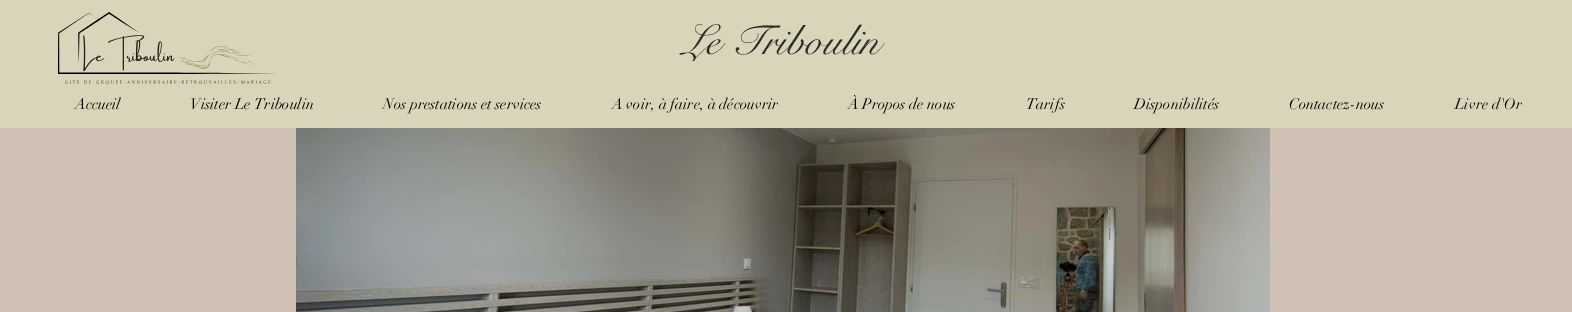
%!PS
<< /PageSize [1572 312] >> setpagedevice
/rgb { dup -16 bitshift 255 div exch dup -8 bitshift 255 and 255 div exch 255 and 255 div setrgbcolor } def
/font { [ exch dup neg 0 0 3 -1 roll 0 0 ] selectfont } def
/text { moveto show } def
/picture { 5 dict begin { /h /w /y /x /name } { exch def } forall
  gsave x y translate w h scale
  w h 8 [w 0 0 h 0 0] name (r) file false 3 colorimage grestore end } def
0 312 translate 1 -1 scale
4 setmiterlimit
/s1 { /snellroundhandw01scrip-Regular 42 font 16#292929 rgb } def
/s2 { /didot-Regular 15 font 16#000000 rgb } def
16#CFC1B4 rgb
0 0 1572 312 rectfill
16#D8D5BA rgb
0 0 1572 128 rectfill
(pic1.raw) 58 12 219 72 picture
s1
(Le Triboulin) 683 54 text
s2
(Accueil) 75 109 text
(Visiter Le Triboulin) 190 109 text
(Nos prestations et services) 383 109 text
(A voir, à faire, à découvrir) 612 109 text
(À Propos de nous) 848 109 text
(Tarifs) 1026 109 text
(Disponibilités) 1134 109 text
(Contactez-nous) 1289 109 text
(Livre d'Or) 1455 109 text
(pic2.raw) 296 128 974 184 picture
showpage
